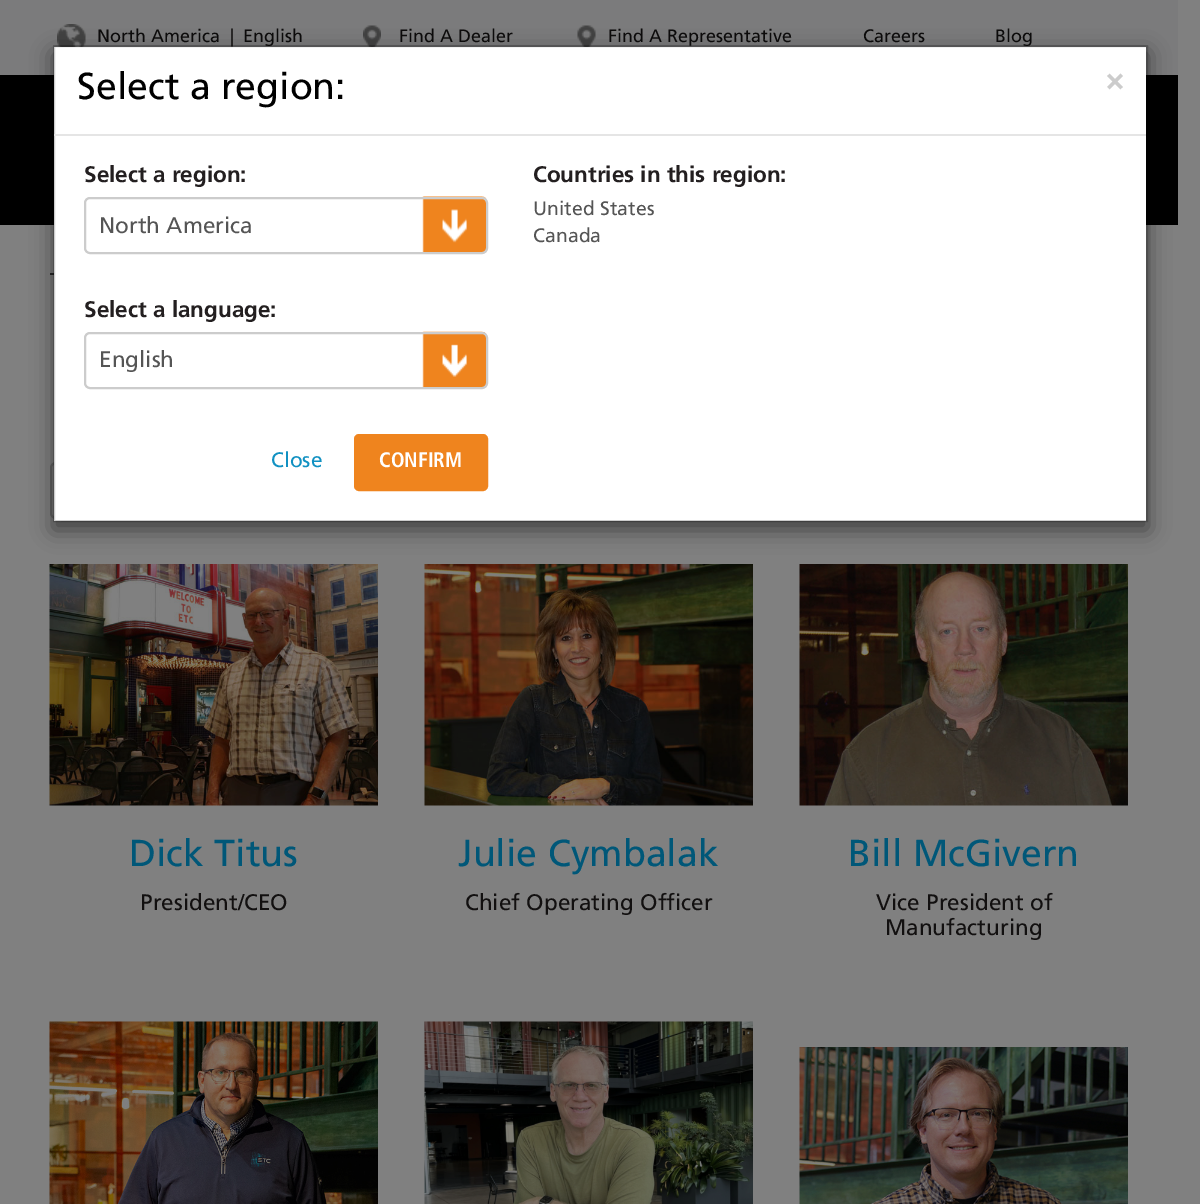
%!PS
<< /PageSize [1200 1204] /PageUsesTransparency true >> setpagedevice
/rgb { dup -16 bitshift 255 div exch dup -8 bitshift 255 and 255 div exch 255 and 255 div setrgbcolor } def
/font { [ exch dup neg 0 0 3 -1 roll 0 0 ] selectfont } def
/text { moveto show } def
/alpha { dup .setfillconstantalpha .setstrokeconstantalpha } def
/roundrect { 5 dict begin { /r /h /w /y /x } { exch def } forall
  x r add y moveto x w add y 2 copy h add r arct x w add y h add x 1 index r arct
  x y h add x y r arct x y 2 copy exch w add exch r arct closepath end } def
/shadow { 12 dict begin { /a /b /q /h /w /y /x } { exch def } forall gsave /was 0 def
  9 -2 -9 { dup b mul 4 div /e exch def 1 sub .425 mul 2.718 exch exp 1 add a .99 .min exch div /now exch def
    1 1 now sub 1 was sub div sub alpha /was now def
    w h .min e 2 mul add 0 gt { x e sub y e sub w e 2 mul add h e 2 mul add
      q e add b .6 mul add w h .min 2 div e add .min 0 .max roundrect fill } if } for grestore end } def
/picture { 5 dict begin { /h /w /y /x /name } { exch def } forall
  gsave x y translate w h scale
  w h 8 [w 0 0 h 0 0] name (r) file false 3 colorimage grestore end } def
0 .pushpdf14devicefilter
0 1204 translate 1 -1 scale
4 setmiterlimit
/s1 { /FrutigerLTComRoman-Regular 18 font 16#0C0B0B rgb } def
/s2 { /FrutigerLTComRoman-Regular 37.5 font 16#000000 rgb } def
/s3 { /FrutigerLTComRoman-Bold 32 font 16#CCCCCC rgb } def
/s4 { /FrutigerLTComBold-Regular 22.5 font 16#231F20 rgb } def
/s5 { /FrutigerLTComRoman-Regular 22.5 font 16#555555 rgb } def
/s6 { /FrutigerLTComRoman-Regular 21 font 16#1191C2 rgb } def
/s7 { /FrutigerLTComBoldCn-Regular 21 font 16#FFFFFF rgb } def
/s8 { /FrutigerLTComRoman-Regular 19.5 font 16#555555 rgb } def
/s9 { /FrutigerLTComRoman-Regular 37.5 font 16#005778 rgb } def
/s10 { /FrutigerLTComRoman-Regular 22.5 font 16#121010 rgb } def
16#808080 rgb
0 0 1200 1204 rectfill
16#2B2B2B rgb
50 273 4 2 rectfill
16#7B7B7C rgb
0 0 1178 75 rectfill
(pic1.raw) 57 24 29 23 picture
s1
(North America) 97 42 text
(|) 230 42 text
(English) 243 42 text
(pic4.raw) 363 25 18 22 picture
(pic5.raw) 577 25 19 22 picture
16#000000 rgb
0 75 1178 150 rectfill
16#666666 rgb
2 setlinewidth
51 463 1078 55 5 roundrect stroke
16#000000 rgb
53 53 1095 477 0 11 0.5 shadow
16#FFFFFF rgb
54 47 1092 474 rectfill
s1
(Find A Representative) 608 42 text
(Blog) 995 42 text
0.2 alpha
16#000000 rgb
54 46 1093 475 rectstroke
1 alpha
16#E5E5E5 rgb
54 134 1092 2 rectfill
s2
(Select a region:) 77 99 text
s3
(×) 1105 90 text
s4
(Select a region:) 84 182 text
(pic2.raw) 422 196 64 58 picture
16#CCCCCC rgb
85 198 402 55 5 roundrect stroke
s5
(North America) 99 233 text
s4
(Select a language:) 84 317 text
(pic3.raw) 422 331 64 58 picture
16#CCCCCC rgb
85 333 402 55 5 roundrect stroke
s5
(English) 99 367 text
s6
(Close) 271 467 text
16#EF841E rgb
355 435 132 55 4 roundrect gsave fill grestore
stroke
s7
(CONFIRM) 379 467 text
s4
(Countries in this region:) 533 182 text
s8
(United States) 533 215 text
(Canada) 533 242 text
s1
(Find A Dealer) 399 42 text
(Careers) 863 42 text
(pic6.raw) 49 564 329 242 picture
s9
(Dick Titus) 129 866 text
s10
(President/CEO) 140 910 text
(pic7.raw) 49 1021 329 183 picture
(pic8.raw) 424 564 329 242 picture
s9
(Julie Cymbalak) 458 866 text
s10
(Chief Operating Officer) 465 910 text
(pic9.raw) 424 1021 329 183 picture
(pic10.raw) 799 564 329 242 picture
s9
(Bill McGivern) 848 866 text
s10
(Vice President of) 876 910 text
(Manufacturing) 885 935 text
(pic11.raw) 799 1047 329 157 picture
.poppdf14devicefilter showpage
